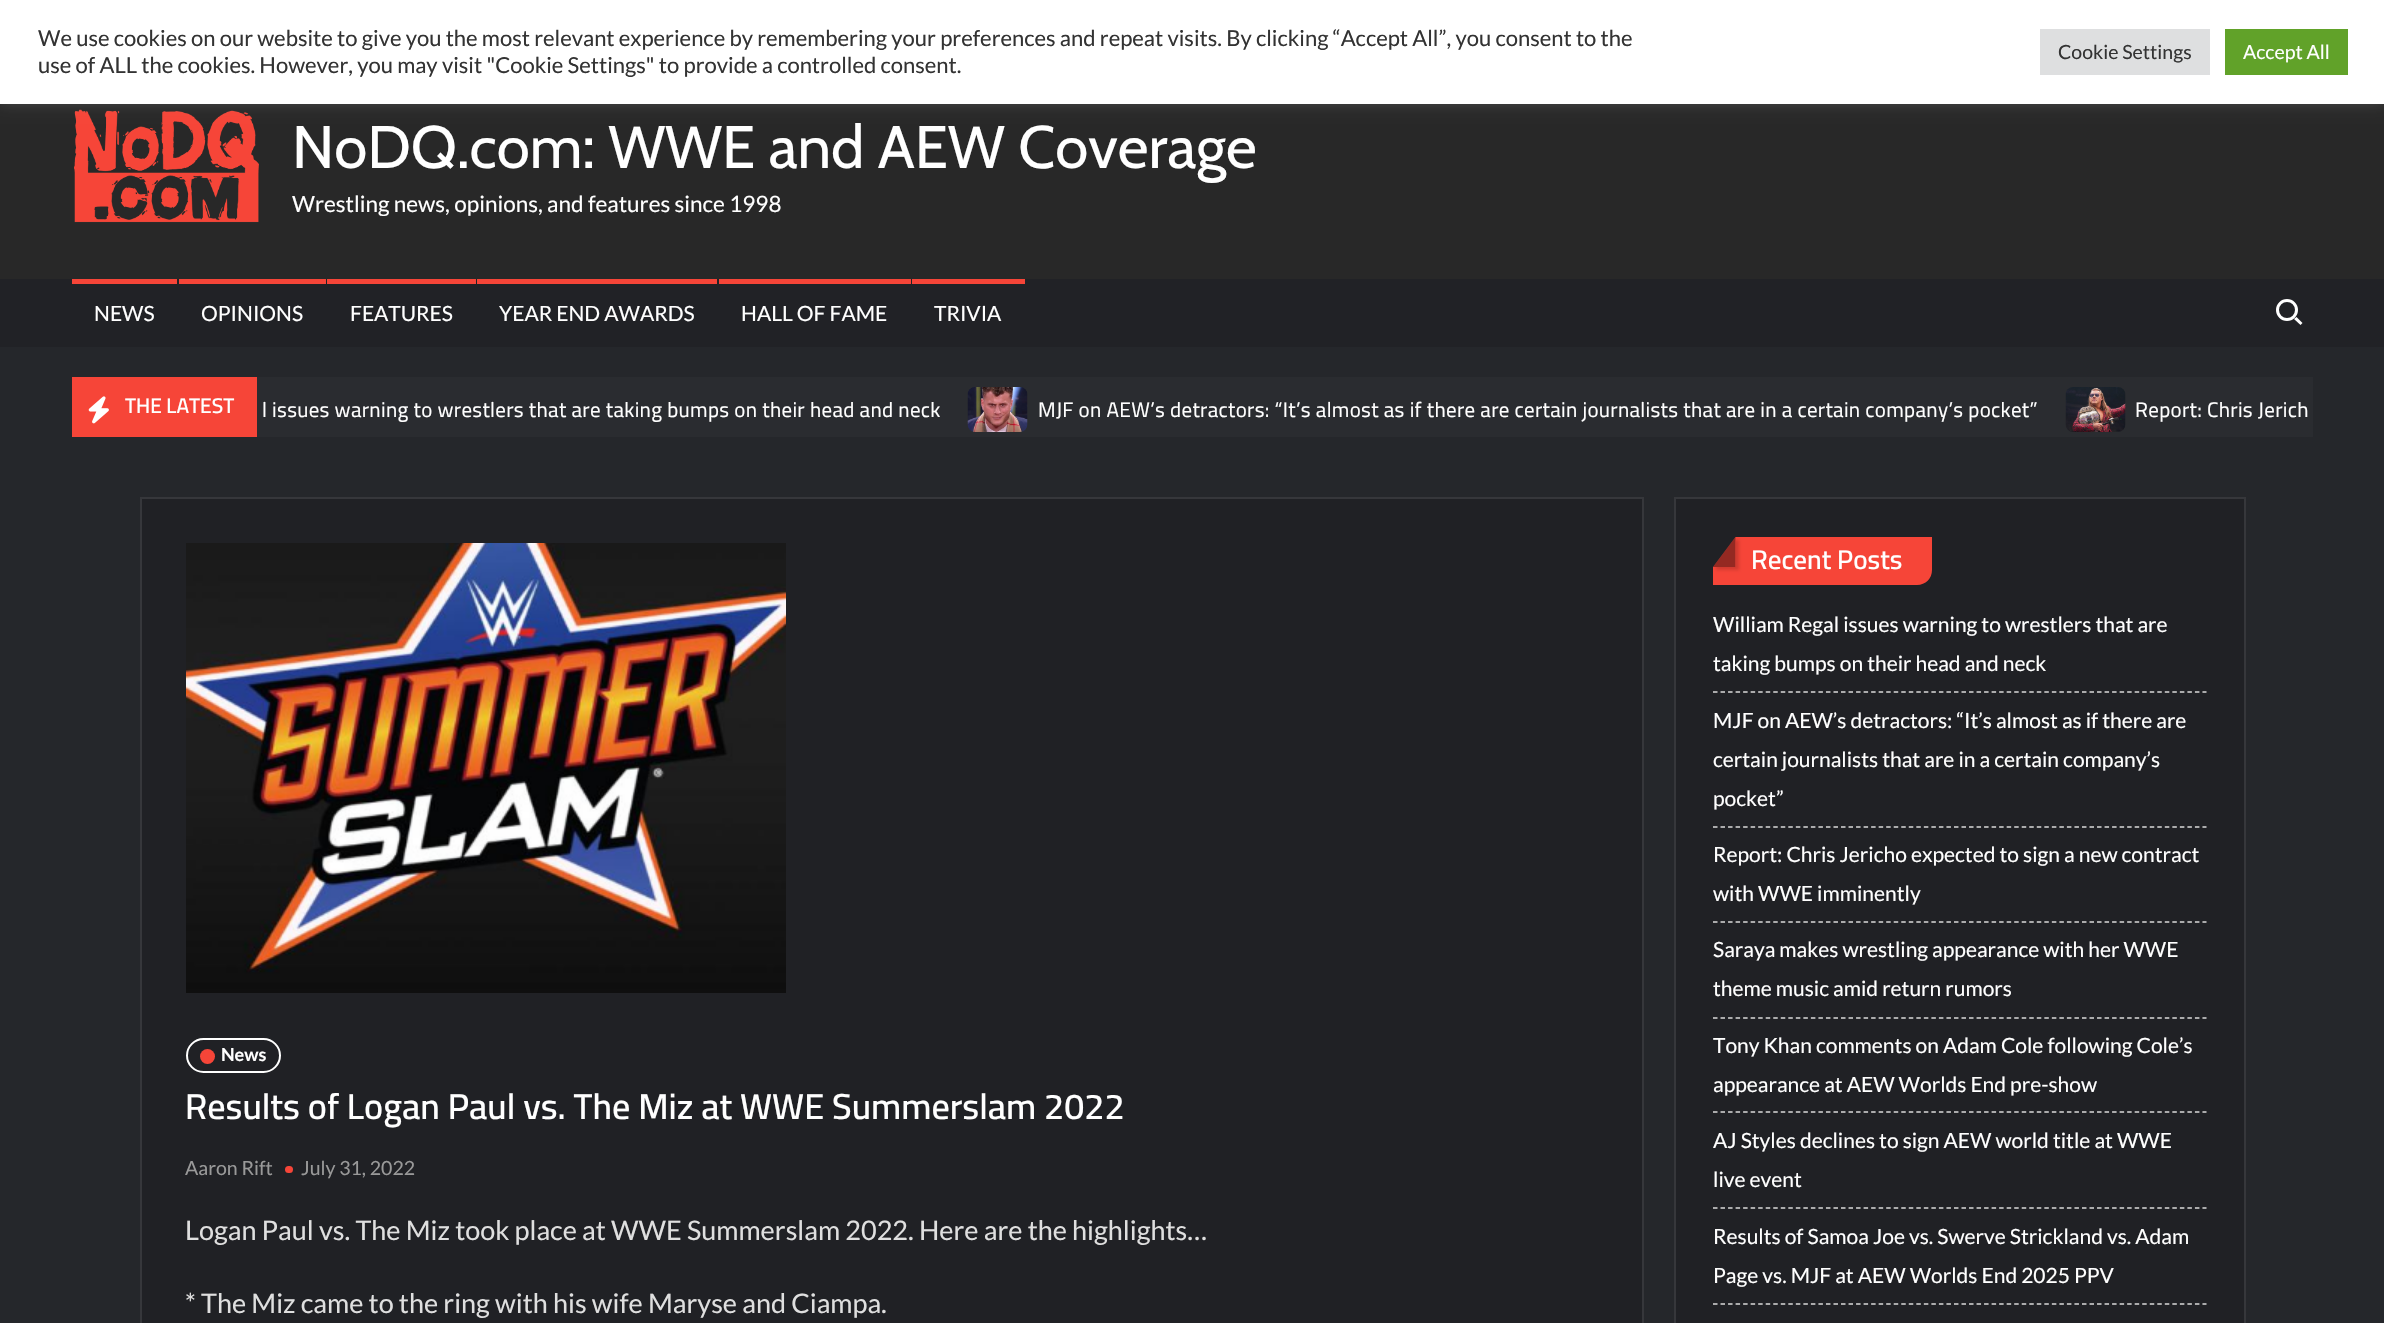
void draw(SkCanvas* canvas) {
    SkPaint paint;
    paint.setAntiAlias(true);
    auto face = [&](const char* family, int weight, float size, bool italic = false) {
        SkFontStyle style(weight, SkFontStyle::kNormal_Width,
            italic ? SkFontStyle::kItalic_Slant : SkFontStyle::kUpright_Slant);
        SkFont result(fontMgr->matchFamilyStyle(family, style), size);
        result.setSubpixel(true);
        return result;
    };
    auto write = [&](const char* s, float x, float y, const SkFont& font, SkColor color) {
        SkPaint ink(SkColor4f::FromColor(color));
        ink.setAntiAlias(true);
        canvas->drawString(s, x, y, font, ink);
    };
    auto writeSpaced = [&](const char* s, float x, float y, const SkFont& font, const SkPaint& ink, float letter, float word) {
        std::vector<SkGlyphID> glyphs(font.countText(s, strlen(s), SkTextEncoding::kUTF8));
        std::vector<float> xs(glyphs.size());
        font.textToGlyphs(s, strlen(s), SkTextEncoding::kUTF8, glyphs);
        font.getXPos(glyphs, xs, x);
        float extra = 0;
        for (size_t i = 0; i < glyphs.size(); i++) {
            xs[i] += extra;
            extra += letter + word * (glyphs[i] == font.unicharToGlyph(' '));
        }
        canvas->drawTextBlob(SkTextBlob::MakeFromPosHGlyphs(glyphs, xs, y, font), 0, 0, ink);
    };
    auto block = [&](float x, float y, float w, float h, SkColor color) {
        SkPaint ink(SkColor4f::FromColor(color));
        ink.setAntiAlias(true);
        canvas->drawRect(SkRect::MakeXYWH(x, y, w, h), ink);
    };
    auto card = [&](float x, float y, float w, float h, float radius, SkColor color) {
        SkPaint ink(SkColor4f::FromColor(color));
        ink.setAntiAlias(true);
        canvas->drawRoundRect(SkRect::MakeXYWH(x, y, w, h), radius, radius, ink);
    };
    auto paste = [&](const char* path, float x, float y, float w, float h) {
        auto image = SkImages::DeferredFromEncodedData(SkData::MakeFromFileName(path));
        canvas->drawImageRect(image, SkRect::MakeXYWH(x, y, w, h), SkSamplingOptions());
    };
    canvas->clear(SkColorSetRGB(37, 39, 43));
    block(0, 104, 2384, 175, SkColorSetRGB(40, 40, 40));
    paste("pic1.png", 74, 109, 185, 114);
    paint.setColor(SkColorSetARGB(77, 172, 171, 171));
    paint.setMaskFilter(SkMaskFilter::MakeBlur(kNormal_SkBlurStyle, 7.5f));
    canvas->drawRect(SkRect::MakeXYWH(0, -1, 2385, 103), paint);
    paint.setMaskFilter(nullptr);
    block(0, 0, 2384, 104, SK_ColorWHITE);
    auto kFont1 = face("Lato", 400, 22);
    write("We use cookies on our website to give you the most relevant experience by remembering your preferences and repeat visits. By clicking “Accept All”, you consent to the", 38, 46, kFont1, SkColorSetRGB(51, 51, 51));
    write("use of ALL the cookies. However, you may visit \"Cookie Settings\" to provide a controlled consent.", 38, 73, kFont1, SkColorSetRGB(51, 51, 51));
    block(2040, 29, 170, 46, SkColorSetRGB(222, 223, 224));
    auto kFont2 = face("Lato", 400, 19.5f);
    write("Cookie Settings", 2058, 59, kFont2, SkColorSetRGB(51, 51, 51));
    block(2225, 29, 123, 46, SkColorSetRGB(97, 162, 41));
    write("Accept All", 2243, 59, kFont2, SK_ColorWHITE);
    auto kFont3 = face("Cabin", 400, 60);
    write("NoDQ.com: WWE and AEW Coverage", 292, 168, kFont3, SK_ColorWHITE);
    auto kFont4 = face("Lato", 400, 22.5f);
    write("Wrestling news, opinions, and features since 1998", 292, 212, kFont4, SK_ColorWHITE);
    block(0, 279, 2384, 68, SkColorSetRGB(33, 34, 38));
    block(72, 279, 105, 5, SkColorSetRGB(246, 69, 56));
    auto kFont5 = face("Lato", 400, 21);
    write("NEWS", 94, 321, kFont5, SK_ColorWHITE);
    block(179, 279, 147, 5, SkColorSetRGB(246, 69, 56));
    write("OPINIONS", 201, 321, kFont5, SK_ColorWHITE);
    block(327, 279, 149, 5, SkColorSetRGB(246, 69, 56));
    write("FEATURES", 350, 321, kFont5, SK_ColorWHITE);
    block(477, 279, 240, 5, SkColorSetRGB(246, 69, 56));
    write("YEAR END AWARDS", 499, 321, kFont5, SK_ColorWHITE);
    block(719, 279, 192, 5, SkColorSetRGB(246, 69, 56));
    write("HALL OF FAME", 741, 321, kFont5, SK_ColorWHITE);
    block(912, 279, 113, 5, SkColorSetRGB(246, 69, 56));
    write("TRIVIA", 934, 321, kFont5, SK_ColorWHITE);
    paint.setStyle(SkPaint::kStroke_Style);
    paint.setStrokeWidth(3);
    paint.setColor(SK_ColorWHITE);
    canvas->drawCircle(2287, 310, 9.5f, paint);
    paint.setStyle(SkPaint::kFill_Style);
    canvas->drawPath(SkPathBuilder().moveTo(2296.5f, 317).lineTo(2302.5f, 323).lineTo(2300.5f, 325).lineTo(2294, 319).close().detach(), paint);
    block(72, 377, 185, 60, SkColorSetRGB(246, 69, 56));
    paste("pic2.png", 88, 396, 21, 28);
    auto kFont6 = face("Cairo", 600, 21);
    write("THE LATEST", 125, 413, kFont6, SK_ColorWHITE);
    block(257, 377, 2056, 60, SkColorSetRGB(42, 44, 48));
    auto kFont7 = face("Cairo", 400, 21);
    writeSpaced("l issues warning to wrestlers that are taking bumps on their head and neck", 262, 417, kFont7, paint, 0.3f, 0);
    paste("pic3.png", 967, 387, 61, 45);
    writeSpaced("MJF on AEW’s detractors: “It’s almost as if there are certain journalists that are in a certain company’s pocket”", 1038, 417, kFont7, paint, 0.3f, 0);
    paste("pic4.png", 2065, 387, 61, 45);
    writeSpaced("Report: Chris Jerich", 2135, 417, kFont7, paint, 0.3f, 0);
    paint.setColor(SkColorSetRGB(32, 33, 37));
    canvas->drawRect(SkRect::MakeXYWH(141, 498, 1502, 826), paint);
    paint.setStyle(SkPaint::kStroke_Style);
    paint.setStrokeWidth(2);
    paint.setColor(SkColorSetRGB(54, 55, 59));
    canvas->drawRect(SkRect::MakeXYWH(141, 498, 1502, 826), paint);
    paste("pic5.png", 186, 543, 600, 450);
    paint.setColor(SK_ColorWHITE);
    canvas->drawRoundRect(SkRect::MakeXYWH(187, 1039, 93, 33), 16.5f, 16.5f, paint);
    paint.setStyle(SkPaint::kFill_Style);
    paint.setColor(SkColorSetRGB(246, 69, 56));
    canvas->drawCircle(207.5f, 1056.5f, 7.5f, paint);
    auto kFont8 = face("Lato", 700, 18);
    write("News", 221, 1061, kFont8, SK_ColorWHITE);
    auto kFont9 = face("Cairo", 600, 36);
    write("Results of Logan Paul vs. The Miz at WWE Summerslam 2022", 185, 1119, kFont9, SK_ColorWHITE);
    write("Aaron Rift", 185, 1175, kFont2, SkColorSetRGB(153, 153, 153));
    card(285, 1166, 8, 7, 3.5f, SkColorSetRGB(246, 69, 56));
    write("July 31, 2022", 301, 1175, kFont2, SkColorSetRGB(153, 153, 153));
    auto kFont10 = face("Lato", 400, 27);
    write("Logan Paul vs. The Miz took place at WWE Summerslam 2022. Here are the highlights…", 185, 1240, kFont10, SkColorSetRGB(223, 223, 223));
    write("* The Miz came to the ring with his wife Maryse and Ciampa.", 185, 1313, kFont10, SkColorSetRGB(223, 223, 223));
    paint.setColor(SkColorSetRGB(32, 33, 37));
    canvas->drawRect(SkRect::MakeXYWH(1675, 498, 570, 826), paint);
    paint.setStyle(SkPaint::kStroke_Style);
    paint.setColor(SkColorSetRGB(54, 55, 59));
    canvas->drawRect(SkRect::MakeXYWH(1675, 498, 570, 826), paint);
    paint.setStyle(SkPaint::kFill_Style);
    paint.setColor(SkColorSetRGB(246, 69, 56));
    canvas->drawPath(SkPathBuilder().moveTo(1713, 537).lineTo(1932, 537).lineTo(1932, 570).cubicTo(1932, 578.5f, 1925.5f, 585, 1917, 585).lineTo(1713, 585).close().detach(), paint);
    paint.setColor(SkColorSetRGB(32, 33, 37));
    canvas->drawPath(SkPathBuilder().moveTo(1713, 537).lineTo(1735.5f, 537).lineTo(1713, 567).close().detach(), paint);
    canvas->save();
    canvas->clipPath(SkPathBuilder(SkPathFillType::kEvenOdd).moveTo(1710, 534).lineTo(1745, 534).lineTo(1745, 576).lineTo(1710, 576).close().moveTo(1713, 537).lineTo(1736, 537).lineTo(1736, 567).lineTo(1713, 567).close().detach(), true);
    paint.setColor(SkColorSetARGB(38, 0, 0, 0));
    paint.setMaskFilter(SkMaskFilter::MakeBlur(kNormal_SkBlurStyle, 1.5f));
    canvas->drawRect(SkRect::MakeXYWH(1716, 540, 23, 30), paint);
    paint.setMaskFilter(nullptr);
    canvas->restore();
    paint.setColor(SkColorSetARGB(102, 0, 0, 0));
    canvas->drawPath(SkPathBuilder().moveTo(1735.5f, 567).lineTo(1713, 567).lineTo(1735.5f, 537).close().detach(), paint);
    auto kFont11 = face("Cairo", 600, 27);
    write("Recent Posts", 1751, 569, kFont11, SK_ColorWHITE);
    paint.setStyle(SkPaint::kStroke_Style);
    paint.setStrokeWidth(1.5f);
    paint.setColor(SkColorSetRGB(217, 217, 217));
    paint.setPathEffect(SkDashPathEffect::Make({{4.5f, 3.03f}}, 0));
    canvas->drawPath(SkPathBuilder().moveTo(1713, 692).lineTo(2206.5f, 692).detach(), paint);
    paint.setPathEffect(nullptr);
    write("William Regal issues warning to wrestlers that are", 1713, 632, kFont5, SK_ColorWHITE);
    write("taking bumps on their head and neck", 1713, 671, kFont5, SK_ColorWHITE);
    paint.setPathEffect(SkDashPathEffect::Make({{4.5f, 3.03f}}, 0));
    canvas->drawPath(SkPathBuilder().moveTo(1713, 827).lineTo(2206.5f, 827).detach(), paint);
    paint.setPathEffect(nullptr);
    write("MJF on AEW’s detractors: “It’s almost as if there are", 1713, 728, kFont5, SK_ColorWHITE);
    write("certain journalists that are in a certain company’s", 1713, 767, kFont5, SK_ColorWHITE);
    write("pocket”", 1713, 806, kFont5, SK_ColorWHITE);
    paint.setPathEffect(SkDashPathEffect::Make({{4.5f, 3.03f}}, 0));
    canvas->drawPath(SkPathBuilder().moveTo(1713, 922).lineTo(2206.5f, 922).detach(), paint);
    paint.setPathEffect(nullptr);
    write("Report: Chris Jericho expected to sign a new contract", 1713, 862, kFont5, SK_ColorWHITE);
    write("with WWE imminently", 1713, 901, kFont5, SK_ColorWHITE);
    paint.setPathEffect(SkDashPathEffect::Make({{4.5f, 3.03f}}, 0));
    canvas->drawPath(SkPathBuilder().moveTo(1713, 1018).lineTo(2206.5f, 1018).detach(), paint);
    paint.setPathEffect(nullptr);
    write("Saraya makes wrestling appearance with her WWE", 1713, 957, kFont5, SK_ColorWHITE);
    write("theme music amid return rumors", 1713, 996, kFont5, SK_ColorWHITE);
    paint.setPathEffect(SkDashPathEffect::Make({{4.5f, 3.03f}}, 0));
    canvas->drawPath(SkPathBuilder().moveTo(1713, 1112).lineTo(2206.5f, 1112).detach(), paint);
    paint.setPathEffect(nullptr);
    write("Tony Khan comments on Adam Cole following Cole’s", 1713, 1053, kFont5, SK_ColorWHITE);
    write("appearance at AEW Worlds End pre-show", 1713, 1092, kFont5, SK_ColorWHITE);
    paint.setPathEffect(SkDashPathEffect::Make({{4.5f, 3.03f}}, 0));
    canvas->drawPath(SkPathBuilder().moveTo(1713, 1208).lineTo(2206.5f, 1208).detach(), paint);
    paint.setPathEffect(nullptr);
    write("AJ Styles declines to sign AEW world title at WWE", 1713, 1148, kFont5, SK_ColorWHITE);
    write("live event", 1713, 1187, kFont5, SK_ColorWHITE);
    paint.setPathEffect(SkDashPathEffect::Make({{4.5f, 3.03f}}, 0));
    canvas->drawPath(SkPathBuilder().moveTo(1713, 1304).lineTo(2206.5f, 1304).detach(), paint);
    paint.setPathEffect(nullptr);
    write("Results of Samoa Joe vs. Swerve Strickland vs. Adam", 1713, 1244, kFont5, SK_ColorWHITE);
    write("Page vs. MJF at AEW Worlds End 2025 PPV", 1713, 1283, kFont5, SK_ColorWHITE);
}
